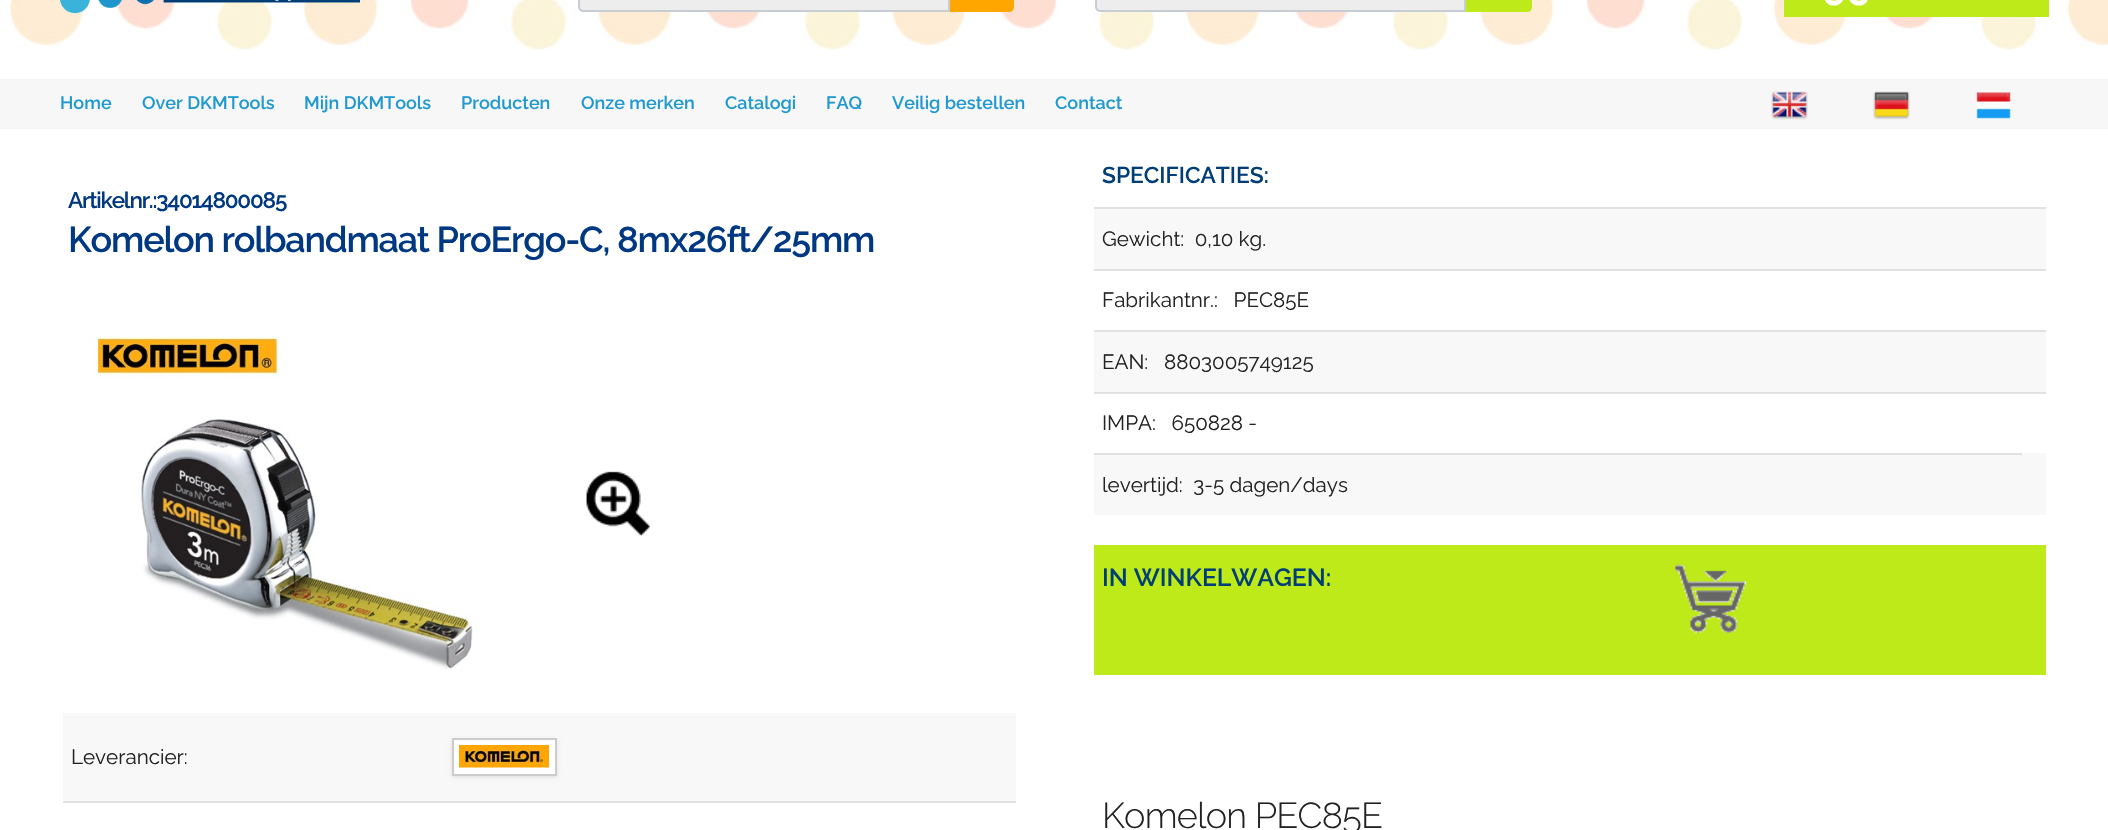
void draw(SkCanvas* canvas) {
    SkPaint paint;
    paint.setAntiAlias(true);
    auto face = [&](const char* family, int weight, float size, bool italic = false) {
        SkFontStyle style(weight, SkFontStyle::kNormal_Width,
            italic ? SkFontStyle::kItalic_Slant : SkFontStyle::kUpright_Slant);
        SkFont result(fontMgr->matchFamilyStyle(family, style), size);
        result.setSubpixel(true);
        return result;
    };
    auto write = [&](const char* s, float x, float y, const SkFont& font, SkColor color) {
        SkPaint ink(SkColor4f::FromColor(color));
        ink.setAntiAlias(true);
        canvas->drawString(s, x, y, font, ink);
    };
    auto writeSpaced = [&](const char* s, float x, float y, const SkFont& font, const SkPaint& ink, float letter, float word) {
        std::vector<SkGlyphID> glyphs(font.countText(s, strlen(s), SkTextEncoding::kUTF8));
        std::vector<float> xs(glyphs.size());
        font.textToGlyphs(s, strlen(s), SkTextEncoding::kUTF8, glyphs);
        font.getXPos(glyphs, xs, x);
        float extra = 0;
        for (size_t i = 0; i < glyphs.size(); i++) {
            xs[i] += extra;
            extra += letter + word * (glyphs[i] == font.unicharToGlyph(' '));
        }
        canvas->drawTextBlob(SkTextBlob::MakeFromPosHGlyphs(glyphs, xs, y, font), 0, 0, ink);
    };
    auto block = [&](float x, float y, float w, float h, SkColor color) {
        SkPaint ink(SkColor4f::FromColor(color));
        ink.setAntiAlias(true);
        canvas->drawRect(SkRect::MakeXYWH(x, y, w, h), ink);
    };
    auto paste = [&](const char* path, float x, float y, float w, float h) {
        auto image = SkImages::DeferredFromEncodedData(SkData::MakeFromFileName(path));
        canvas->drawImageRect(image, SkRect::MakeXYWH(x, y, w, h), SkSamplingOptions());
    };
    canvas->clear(SK_ColorWHITE);
    paste("pic1.png", 9, 0, 2099, 50);
    paste("pic2.png", 60, 0, 300, 13);
    paint.setColor(SkColorSetRGB(237, 237, 237));
    canvas->drawPath(SkPathBuilder().moveTo(583, -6).lineTo(949, -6).lineTo(949, 11).lineTo(583, 11).cubicTo(581, 11, 579, 9, 579, 7).lineTo(579, -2).cubicTo(579, -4, 581, -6, 583, -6).close().detach(), paint);
    paint.setStyle(SkPaint::kStroke_Style);
    paint.setStrokeWidth(2);
    paint.setColor(SkColorSetRGB(199, 205, 210));
    canvas->drawPath(SkPathBuilder().moveTo(583, -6).lineTo(949, -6).lineTo(949, 11).lineTo(583, 11).cubicTo(581, 11, 579, 9, 579, 7).lineTo(579, -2).cubicTo(579, -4, 581, -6, 583, -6).close().detach(), paint);
    paint.setStyle(SkPaint::kFill_Style);
    paint.setColor(SkColorSetRGB(255, 166, 0));
    canvas->drawPath(SkPathBuilder().moveTo(950, -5).lineTo(1009, -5).cubicTo(1012, -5, 1014, -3, 1014, 0).lineTo(1014, 7).cubicTo(1014, 10, 1012, 12, 1009, 12).lineTo(950, 12).close().detach(), paint);
    paint.setColor(SkColorSetRGB(237, 237, 237));
    canvas->drawPath(SkPathBuilder().moveTo(1100, -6).lineTo(1465, -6).lineTo(1465, 11).lineTo(1100, 11).cubicTo(1098, 11, 1096, 9, 1096, 7).lineTo(1096, -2).cubicTo(1096, -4, 1098, -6, 1100, -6).close().detach(), paint);
    paint.setStyle(SkPaint::kStroke_Style);
    paint.setColor(SkColorSetRGB(199, 205, 210));
    canvas->drawPath(SkPathBuilder().moveTo(1100, -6).lineTo(1465, -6).lineTo(1465, 11).lineTo(1100, 11).cubicTo(1098, 11, 1096, 9, 1096, 7).lineTo(1096, -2).cubicTo(1096, -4, 1098, -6, 1100, -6).close().detach(), paint);
    paint.setStyle(SkPaint::kFill_Style);
    paint.setColor(SkColorSetRGB(189, 234, 24));
    canvas->drawPath(SkPathBuilder().moveTo(1466, -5).lineTo(1527, -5).cubicTo(1530, -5, 1532, -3, 1532, 0).lineTo(1532, 7).cubicTo(1532, 10, 1530, 12, 1527, 12).lineTo(1466, 12).close().detach(), paint);
    block(1784, 0, 265, 17, SkColorSetRGB(189, 234, 24));
    paste("pic3.png", 1824, 0, 44, 6);
    block(0, 79, 2108, 50, SkColorSetRGB(247, 247, 247));
    auto kFont1 = face("Raleway", 600, 18);
    write("Home", 60, 109, kFont1, SkColorSetRGB(32, 153, 209));
    write("Over DKMTools", 142, 109, kFont1, SkColorSetRGB(32, 153, 209));
    write("Mijn DKMTools", 304, 109, kFont1, SkColorSetRGB(32, 153, 209));
    write("Producten", 461, 109, kFont1, SkColorSetRGB(32, 153, 209));
    write("Onze merken", 581, 109, kFont1, SkColorSetRGB(32, 153, 209));
    write("Catalogi", 725, 109, kFont1, SkColorSetRGB(32, 153, 209));
    write("FAQ", 826, 109, kFont1, SkColorSetRGB(32, 153, 209));
    write("Veilig bestellen", 892, 109, kFont1, SkColorSetRGB(32, 153, 209));
    write("Contact", 1055, 109, kFont1, SkColorSetRGB(32, 153, 209));
    paste("pic4.png", 1771, 91, 37, 29);
    paste("pic5.png", 1873, 91, 37, 29);
    paste("pic6.png", 1976, 92, 35, 27);
    auto kFont2 = face("Raleway", 600, 22.5f);
    paint.setColor(SkColorSetRGB(0, 56, 130));
    writeSpaced("Artikelnr.:34014800085", 68, 208, kFont2, paint, -1.2f, 0);
    auto kFont3 = face("Raleway", 600, 36);
    writeSpaced("Komelon rolbandmaat ProErgo-C, 8mx26ft/25mm", 68, 252, kFont3, paint, -1.2f, 0);
    paste("pic7.png", 90, 337, 386, 333);
    paste("pic8.png", 586, 471, 64, 65);
    block(63, 713, 953, 88, SkColorSetRGB(248, 248, 248));
    block(63, 801, 953, 2, SkColorSetRGB(225, 225, 225));
    paint.setColor(SkColorSetARGB(26, 0, 0, 0));
    paint.setMaskFilter(SkMaskFilter::MakeBlur(kNormal_SkBlurStyle, 2));
    canvas->drawRect(SkRect::MakeXYWH(452, 740, 105, 37), paint);
    paint.setMaskFilter(nullptr);
    paint.setColor(SK_ColorWHITE);
    canvas->drawRect(SkRect::MakeXYWH(453, 739, 103, 36), paint);
    paint.setStyle(SkPaint::kStroke_Style);
    paint.setColor(SkColorSetRGB(204, 204, 204));
    canvas->drawRect(SkRect::MakeXYWH(453, 739, 103, 36), paint);
    paste("pic9.png", 459, 745, 90, 23);
    auto kFont4 = face("Raleway", 400, 20.6f);
    write("Leverancier:", 71, 764, kFont4, SkColorSetRGB(34, 34, 34));
    block(1094, 207, 952, 2, SkColorSetRGB(225, 225, 225));
    auto kFont5 = face("Raleway", 600, 22.75f);
    write("SPECIFICATIES:", 1102, 183, kFont5, SkColorSetRGB(0, 62, 119));
    block(1094, 209, 952, 60, SkColorSetRGB(248, 248, 248));
    write("Gewicht:  0,10 kg.", 1102, 246, kFont4, SkColorSetRGB(34, 34, 34));
    block(1094, 269, 952, 2, SkColorSetRGB(225, 225, 225));
    write("Fabrikantnr.:   PEC85E", 1102, 307, kFont4, SkColorSetRGB(34, 34, 34));
    block(1094, 330, 952, 2, SkColorSetRGB(225, 225, 225));
    block(1094, 332, 952, 60, SkColorSetRGB(248, 248, 248));
    write("EAN:   8803005749125", 1102, 369, kFont4, SkColorSetRGB(34, 34, 34));
    block(1094, 392, 952, 2, SkColorSetRGB(225, 225, 225));
    block(1094, 453, 952, 62, SkColorSetRGB(248, 248, 248));
    block(1094, 453, 928, 2, SkColorSetRGB(225, 225, 225));
    write("IMPA:   650828 -", 1102, 430, kFont4, SkColorSetRGB(34, 34, 34));
    write("levertijd:  3-5 dagen/days", 1102, 492, kFont4, SkColorSetRGB(34, 34, 34));
    block(1094, 545, 952, 130, SkColorSetRGB(189, 234, 24));
    auto kFont6 = face("Raleway", 600, 24.75f);
    write("IN WINKELWAGEN:", 1102, 586, kFont6, SkColorSetRGB(0, 62, 119));
    paste("pic10.png", 1675, 564, 72, 69);
    auto kFont7 = face("Raleway", 300, 36);
    paint.setStyle(SkPaint::kFill_Style);
    paint.setColor(SkColorSetRGB(34, 34, 34));
    writeSpaced("Komelon PEC85E", 1102, 828, kFont7, paint, -0.75f, 0);
}
